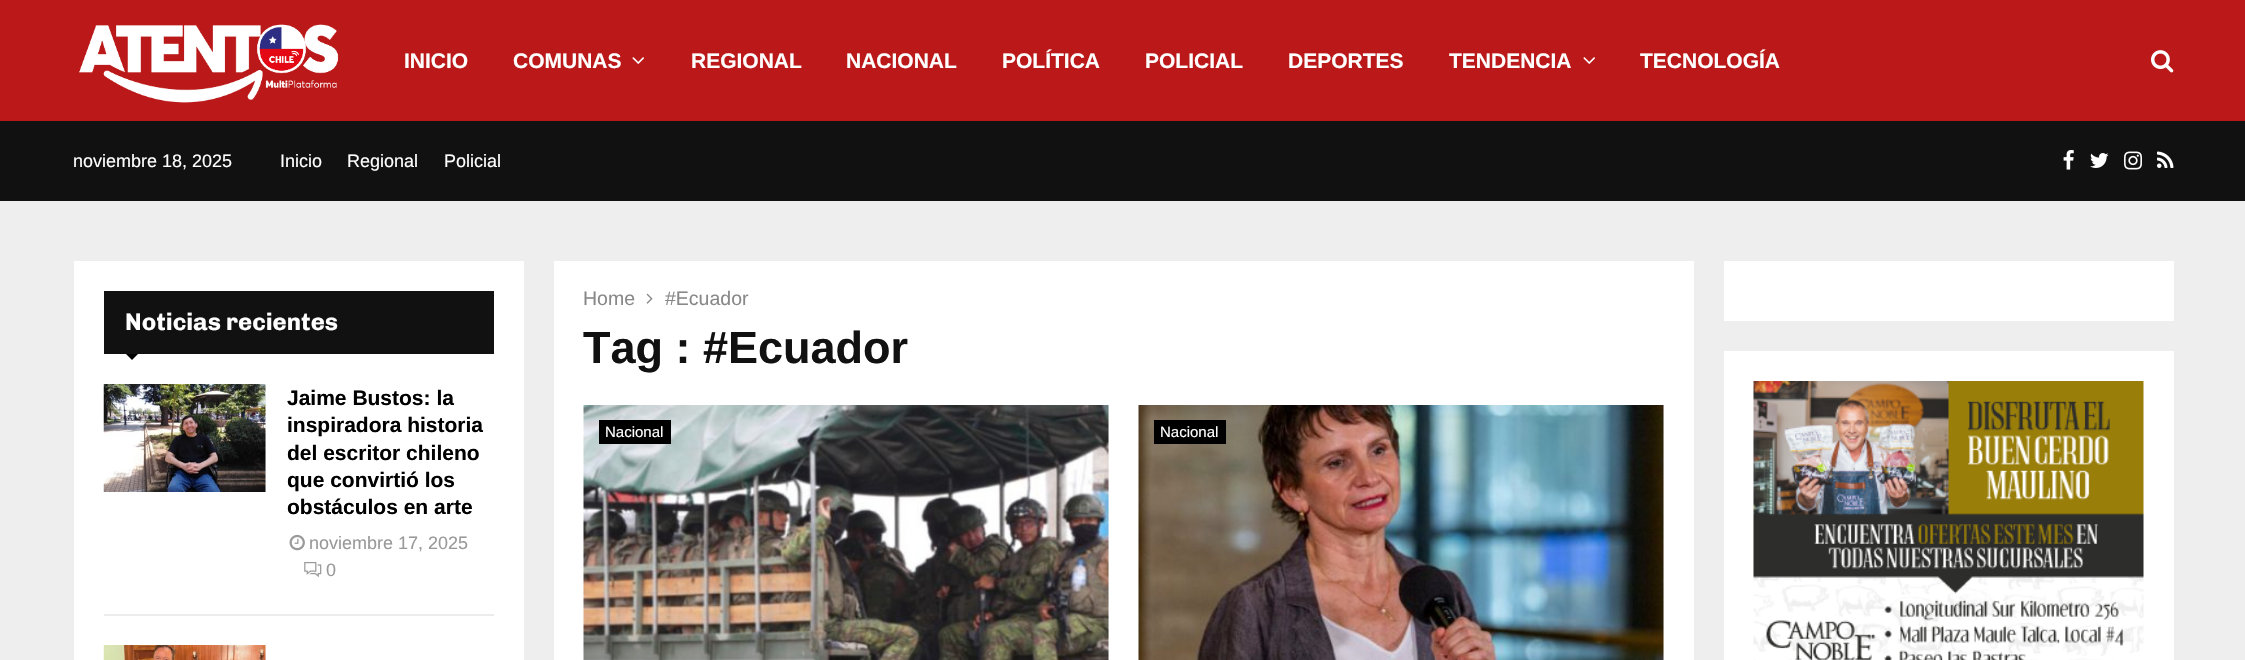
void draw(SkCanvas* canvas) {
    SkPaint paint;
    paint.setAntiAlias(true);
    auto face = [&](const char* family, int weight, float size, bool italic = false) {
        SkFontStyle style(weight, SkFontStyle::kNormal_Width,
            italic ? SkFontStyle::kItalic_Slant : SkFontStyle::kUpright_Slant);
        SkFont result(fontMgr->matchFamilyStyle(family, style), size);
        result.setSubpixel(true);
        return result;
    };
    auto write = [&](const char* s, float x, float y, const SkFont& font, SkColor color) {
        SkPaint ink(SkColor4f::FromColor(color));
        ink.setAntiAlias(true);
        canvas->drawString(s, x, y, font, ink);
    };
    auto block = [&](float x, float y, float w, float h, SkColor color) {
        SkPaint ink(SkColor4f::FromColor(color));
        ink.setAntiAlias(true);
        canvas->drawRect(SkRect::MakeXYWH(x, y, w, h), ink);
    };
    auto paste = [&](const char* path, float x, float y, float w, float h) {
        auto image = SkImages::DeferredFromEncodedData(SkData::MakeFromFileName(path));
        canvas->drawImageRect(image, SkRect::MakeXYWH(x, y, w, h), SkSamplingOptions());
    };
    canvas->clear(SkColorSetRGB(238, 238, 238));
    block(0, 0, 2245, 121, SkColorSetRGB(187, 25, 25));
    paste("pic1.png", 79, 24, 260, 79);
    auto kFont1 = face("Liberation Sans", 700, 21);
    write("INICIO", 404, 68, kFont1, SK_ColorWHITE);
    write("COMUNAS", 513, 68, kFont1, SK_ColorWHITE);
    paste("pic2.png", 632, 57, 12, 7);
    write("REGIONAL", 691, 68, kFont1, SK_ColorWHITE);
    write("NACIONAL", 846, 68, kFont1, SK_ColorWHITE);
    write("POLÍTICA", 1002, 68, kFont1, SK_ColorWHITE);
    write("POLICIAL", 1145, 68, kFont1, SK_ColorWHITE);
    write("DEPORTES", 1288, 68, kFont1, SK_ColorWHITE);
    write("TENDENCIA", 1449, 68, kFont1, SK_ColorWHITE);
    paste("pic2.png", 1583, 57, 12, 7);
    write("TECNOLOGÍA", 1640, 68, kFont1, SK_ColorWHITE);
    paste("pic3.png", 2151, 50, 23, 23);
    block(0, 121, 2245, 80, SkColorSetRGB(17, 17, 17));
    auto kFont2 = face("Liberation Sans", 400, 18);
    write("noviembre 18, 2025", 73, 167, kFont2, SK_ColorWHITE);
    write("Inicio", 280, 167, kFont2, SK_ColorWHITE);
    write("Regional", 347, 167, kFont2, SK_ColorWHITE);
    write("Policial", 444, 167, kFont2, SK_ColorWHITE);
    paste("pic4.png", 2063, 150, 11, 20);
    paste("pic5.png", 2090, 153, 19, 15);
    paste("pic6.png", 2124, 151, 18, 19);
    paste("pic7.png", 2157, 151, 17, 17);
    block(74, 261, 450, 399, SK_ColorWHITE);
    block(104, 291, 390, 63, SkColorSetRGB(17, 17, 17));
    auto kFont3 = face("Chivo", 700, 24);
    write("Noticias recientes", 125, 330, kFont3, SK_ColorWHITE);
    paint.setColor(SK_ColorBLACK);
    canvas->drawPath(SkPathBuilder().moveTo(126, 354).lineTo(138, 354).lineTo(132, 360).close().detach(), paint);
    block(104, 614, 390, 2, SkColorSetRGB(236, 236, 236));
    block(265, 384, 1, 108, SkColorSetRGB(245, 245, 245));
    paste("pic8.png", 103, 384, 163, 108);
    write("Jaime Bustos: la", 287, 405, kFont1, SK_ColorBLACK);
    write("inspiradora historia", 287, 432, kFont1, SK_ColorBLACK);
    write("del escritor chileno", 287, 460, kFont1, SK_ColorBLACK);
    write("que convirtió los", 287, 487, kFont1, SK_ColorBLACK);
    write("obstáculos en arte", 287, 514, kFont1, SK_ColorBLACK);
    paste("pic9.png", 289, 534, 16, 17);
    write("noviembre 17, 2025", 309, 549, kFont2, SkColorSetRGB(153, 153, 153));
    paste("pic10.png", 304, 562, 18, 16);
    write("0", 326, 576, kFont2, SkColorSetRGB(153, 153, 153));
    block(265, 645, 1, 15, SkColorSetRGB(245, 245, 245));
    paste("pic11.png", 103, 645, 163, 15);
    block(554, 261, 1140, 399, SK_ColorWHITE);
    auto kFont4 = face("Liberation Sans", 400, 19.5f);
    write("Home", 583, 305, kFont4, SkColorSetRGB(136, 136, 136));
    paste("pic12.png", 646, 293, 7, 11);
    write("#Ecuador", 665, 305, kFont4, SkColorSetRGB(136, 136, 136));
    auto kFont5 = face("Liberation Sans", 700, 45);
    write("Tag : #Ecuador", 583, 363, kFont5, SkColorSetRGB(17, 17, 17));
    block(1108, 405, 1, 255, SkColorSetRGB(245, 245, 245));
    paste("pic13.png", 583, 405, 526, 255);
    block(599, 420, 72, 24, SK_ColorBLACK);
    auto kFont6 = face("Liberation Sans", 400, 15);
    write("Nacional", 605, 437, kFont6, SK_ColorWHITE);
    block(1663, 405, 1, 255, SkColorSetRGB(245, 245, 245));
    paste("pic14.png", 1138, 405, 526, 255);
    block(1154, 420, 72, 24, SK_ColorBLACK);
    write("Nacional", 1160, 437, kFont6, SK_ColorWHITE);
    block(1724, 261, 450, 60, SK_ColorWHITE);
    block(1724, 351, 450, 309, SK_ColorWHITE);
    paste("pic15.png", 1753, 381, 391, 279);
}
